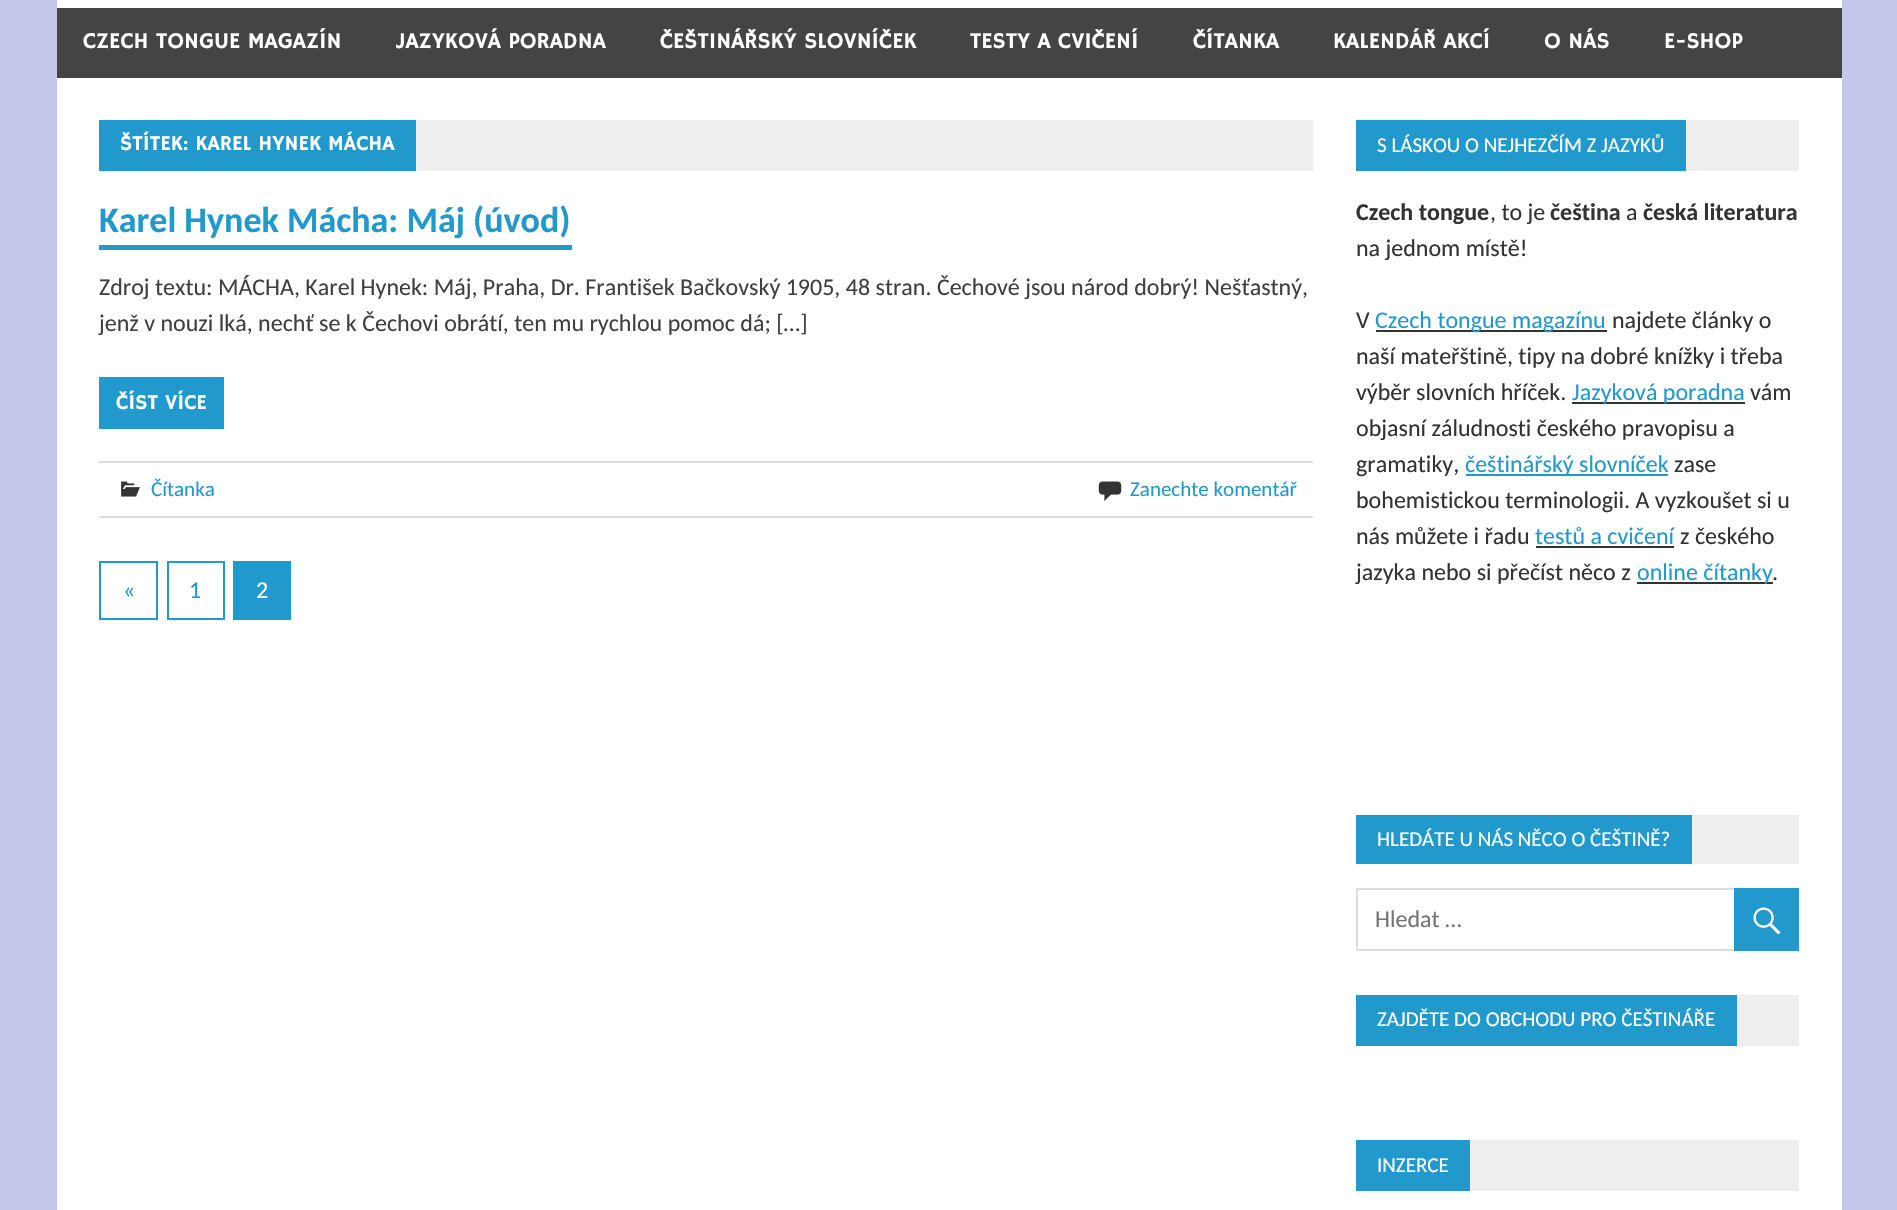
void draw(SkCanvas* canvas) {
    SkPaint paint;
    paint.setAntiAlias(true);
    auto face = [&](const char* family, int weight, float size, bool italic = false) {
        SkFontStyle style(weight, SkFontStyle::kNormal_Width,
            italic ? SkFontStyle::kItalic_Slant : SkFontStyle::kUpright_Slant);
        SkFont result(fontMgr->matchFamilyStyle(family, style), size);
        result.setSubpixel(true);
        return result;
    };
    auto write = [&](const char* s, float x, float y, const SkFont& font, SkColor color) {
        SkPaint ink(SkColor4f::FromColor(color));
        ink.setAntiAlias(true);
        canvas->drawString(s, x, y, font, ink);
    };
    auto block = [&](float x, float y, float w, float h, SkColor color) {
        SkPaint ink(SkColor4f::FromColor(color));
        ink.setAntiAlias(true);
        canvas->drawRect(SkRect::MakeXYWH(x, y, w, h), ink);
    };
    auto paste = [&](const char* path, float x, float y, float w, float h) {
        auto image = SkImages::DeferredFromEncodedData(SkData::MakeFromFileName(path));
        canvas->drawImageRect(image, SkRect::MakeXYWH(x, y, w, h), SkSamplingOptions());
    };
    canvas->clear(SkColorSetRGB(196, 200, 237));
    block(57, 0, 1785, 1210, SK_ColorWHITE);
    block(57, 8, 1785, 70, SkColorSetRGB(68, 68, 68));
    auto kFont1 = face("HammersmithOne", 400, 22.5f);
    write("CZECH TONGUE MAGAZÍN", 83, 48, kFont1, SK_ColorWHITE);
    write("JAZYKOVÁ PORADNA", 396, 48, kFont1, SK_ColorWHITE);
    write("ČEŠTINÁŘSKÝ SLOVNÍČEK", 660, 48, kFont1, SK_ColorWHITE);
    write("TESTY A CVIČENÍ", 970, 48, kFont1, SK_ColorWHITE);
    write("ČÍTANKA", 1193, 48, kFont1, SK_ColorWHITE);
    write("KALENDÁŘ AKCÍ", 1333, 48, kFont1, SK_ColorWHITE);
    write("O NÁS", 1544, 48, kFont1, SK_ColorWHITE);
    write("E-SHOP", 1664, 48, kFont1, SK_ColorWHITE);
    block(416, 120, 897, 51, SkColorSetRGB(238, 238, 238));
    block(99, 120, 317, 51, SkColorSetRGB(34, 153, 204));
    auto kFont2 = face("HammersmithOne", 400, 21);
    write("ŠTÍTEK: KAREL HYNEK MÁCHA", 120, 150, kFont2, SK_ColorWHITE);
    auto kFont3 = face("Carlito", 700, 36);
    write("Karel Hynek Mácha: Máj (úvod)", 99, 232, kFont3, SkColorSetRGB(34, 153, 204));
    block(99, 245, 473, 5, SkColorSetRGB(34, 153, 204));
    auto kFont4 = face("Carlito", 400, 24);
    write("Zdroj textu: MÁCHA, Karel Hynek: Máj, Praha, Dr. František Bačkovský 1905, 48 stran. Čechové jsou národ dobrý! Nešťastný,", 99, 295, kFont4, SkColorSetRGB(64, 64, 64));
    write("jenž v nouzi lká, nechť se k Čechovi obrátí, ten mu rychlou pomoc dá; […]", 99, 331, kFont4, SkColorSetRGB(64, 64, 64));
    block(99, 377, 125, 52, SkColorSetRGB(34, 153, 204));
    write("ČÍST VÍCE", 116, 409, kFont2, SK_ColorWHITE);
    block(99, 461, 1214, 2, SkColorSetRGB(221, 221, 221));
    block(99, 516, 1214, 2, SkColorSetRGB(221, 221, 221));
    paste("pic1.png", 121, 481, 19, 16);
    auto kFont5 = face("Carlito", 400, 21);
    write("Čítanka", 151, 496, kFont5, SkColorSetRGB(34, 153, 204));
    paste("pic2.png", 1098, 481, 24, 20);
    write("Zanechte komentář", 1130, 496, kFont5, SkColorSetRGB(34, 153, 204));
    paint.setStyle(SkPaint::kStroke_Style);
    paint.setStrokeWidth(2);
    paint.setColor(SkColorSetRGB(34, 153, 204));
    canvas->drawRect(SkRect::MakeXYWH(100, 562, 57, 57), paint);
    write("«", 123, 598, kFont4, SkColorSetRGB(34, 153, 204));
    canvas->drawRect(SkRect::MakeXYWH(168, 562, 56, 57), paint);
    write("1", 189, 598, kFont4, SkColorSetRGB(34, 153, 204));
    block(233, 561, 58, 59, SkColorSetRGB(34, 153, 204));
    write("2", 256, 598, kFont4, SK_ColorWHITE);
    block(1686, 120, 113, 51, SkColorSetRGB(238, 238, 238));
    block(1356, 120, 330, 51, SkColorSetRGB(34, 153, 204));
    write("S LÁSKOU O NEJHEZČÍM Z JAZYKŮ", 1377, 152, kFont5, SK_ColorWHITE);
    auto kFont6 = face("Carlito", 700, 24);
    write("Czech tongue", 1356, 220, kFont6, SkColorSetRGB(51, 51, 51));
    write(", to je", 1490, 220, kFont4, SkColorSetRGB(51, 51, 51));
    write("čeština", 1550, 220, kFont6, SkColorSetRGB(51, 51, 51));
    write("a", 1626, 220, kFont4, SkColorSetRGB(51, 51, 51));
    write("česká literatura", 1643, 220, kFont6, SkColorSetRGB(51, 51, 51));
    write("na jednom místě!", 1356, 256, kFont4, SkColorSetRGB(51, 51, 51));
    write("V", 1356, 328, kFont4, SkColorSetRGB(51, 51, 51));
    block(1376, 330, 231, 2, SkColorSetRGB(51, 51, 51));
    write("Czech tongue magazínu", 1375, 328, kFont4, SkColorSetRGB(34, 153, 204));
    write("najdete články o", 1612, 328, kFont4, SkColorSetRGB(51, 51, 51));
    write("naší mateřštině, tipy na dobré knížky i třeba", 1356, 364, kFont4, SkColorSetRGB(51, 51, 51));
    write("výběr slovních hříček.", 1356, 400, kFont4, SkColorSetRGB(51, 51, 51));
    block(1572, 402, 173, 2, SkColorSetRGB(51, 51, 51));
    write("Jazyková poradna", 1572, 400, kFont4, SkColorSetRGB(34, 153, 204));
    write("vám", 1750, 400, kFont4, SkColorSetRGB(51, 51, 51));
    write("objasní záludnosti českého pravopisu a", 1356, 436, kFont4, SkColorSetRGB(51, 51, 51));
    write("gramatiky,", 1356, 472, kFont4, SkColorSetRGB(51, 51, 51));
    block(1466, 474, 202, 2, SkColorSetRGB(34, 153, 204));
    write("češtinářský slovníček", 1465, 472, kFont4, SkColorSetRGB(34, 153, 204));
    write("zase", 1674, 472, kFont4, SkColorSetRGB(51, 51, 51));
    write("bohemistickou terminologii. A vyzkoušet si u", 1356, 508, kFont4, SkColorSetRGB(51, 51, 51));
    write("nás můžete i řadu", 1356, 544, kFont4, SkColorSetRGB(51, 51, 51));
    write("testů a cvičení", 1535, 544, kFont4, SkColorSetRGB(34, 153, 204));
    block(1536, 546, 138, 2, SkColorSetRGB(51, 51, 51));
    write("z českého", 1680, 544, kFont4, SkColorSetRGB(51, 51, 51));
    write("jazyka nebo si přečíst něco z", 1356, 580, kFont4, SkColorSetRGB(51, 51, 51));
    block(1637, 582, 136, 2, SkColorSetRGB(51, 51, 51));
    write("online čítanky", 1637, 580, kFont4, SkColorSetRGB(34, 153, 204));
    write(".", 1772, 580, kFont4, SkColorSetRGB(51, 51, 51));
    block(1692, 815, 107, 49, SkColorSetRGB(238, 238, 238));
    block(1356, 815, 336, 49, SkColorSetRGB(34, 153, 204));
    write("HLEDÁTE U NÁS NĚCO O ČEŠTINĚ?", 1377, 846, kFont5, SK_ColorWHITE);
    paint.setColor(SkColorSetRGB(221, 221, 221));
    canvas->drawRect(SkRect::MakeXYWH(1357, 889, 441, 61), paint);
    write("Hledat …", 1375, 927, kFont4, SkColorSetRGB(117, 117, 117));
    block(1734, 888, 65, 63, SkColorSetRGB(34, 153, 204));
    paste("pic3.png", 1753, 907, 28, 28);
    block(1737, 995, 62, 51, SkColorSetRGB(238, 238, 238));
    block(1356, 995, 381, 51, SkColorSetRGB(34, 153, 204));
    write("ZAJDĚTE DO OBCHODU PRO ČEŠTINÁŘE", 1377, 1026, kFont5, SK_ColorWHITE);
    block(1470, 1140, 329, 51, SkColorSetRGB(238, 238, 238));
    block(1356, 1140, 114, 51, SkColorSetRGB(34, 153, 204));
    write("INZERCE", 1377, 1172, kFont5, SK_ColorWHITE);
}
